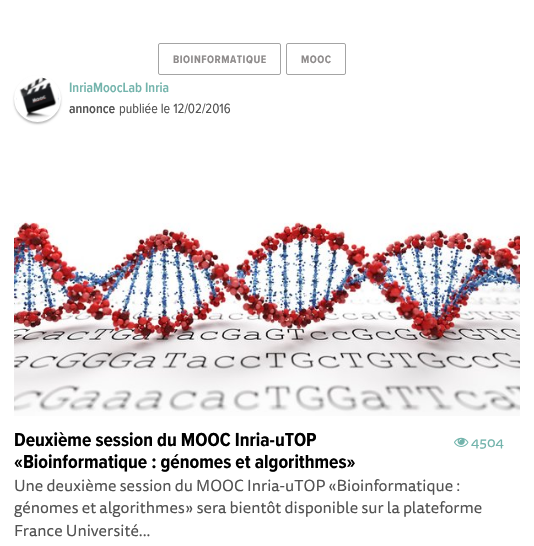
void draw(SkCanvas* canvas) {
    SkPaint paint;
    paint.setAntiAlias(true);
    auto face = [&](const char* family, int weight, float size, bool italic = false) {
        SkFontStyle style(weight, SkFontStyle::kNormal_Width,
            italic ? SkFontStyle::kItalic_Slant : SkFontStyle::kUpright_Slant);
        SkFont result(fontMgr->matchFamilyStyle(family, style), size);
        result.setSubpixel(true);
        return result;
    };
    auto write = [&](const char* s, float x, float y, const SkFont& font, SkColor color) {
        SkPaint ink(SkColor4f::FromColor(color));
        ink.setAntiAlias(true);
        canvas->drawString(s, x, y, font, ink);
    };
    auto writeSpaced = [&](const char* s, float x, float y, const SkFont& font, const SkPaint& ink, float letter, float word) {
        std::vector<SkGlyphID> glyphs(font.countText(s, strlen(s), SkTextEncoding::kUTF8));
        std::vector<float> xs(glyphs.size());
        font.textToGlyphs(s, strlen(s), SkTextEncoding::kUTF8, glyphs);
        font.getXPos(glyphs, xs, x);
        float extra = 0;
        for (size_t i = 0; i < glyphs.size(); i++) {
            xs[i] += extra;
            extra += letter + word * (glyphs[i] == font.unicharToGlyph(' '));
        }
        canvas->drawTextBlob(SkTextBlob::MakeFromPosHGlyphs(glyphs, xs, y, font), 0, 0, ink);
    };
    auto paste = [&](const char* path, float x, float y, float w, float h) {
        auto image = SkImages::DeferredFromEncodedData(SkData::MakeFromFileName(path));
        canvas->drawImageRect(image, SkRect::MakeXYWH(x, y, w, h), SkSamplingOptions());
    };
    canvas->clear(SK_ColorWHITE);
    paint.setStyle(SkPaint::kStroke_Style);
    paint.setStrokeWidth(1);
    paint.setColor(SkColorSetRGB(164, 164, 164));
    canvas->drawRoundRect(SkRect::MakeXYWH(158.5f, 43.5f, 122, 31), 1.5f, 1.5f, paint);
    auto kFont1 = face("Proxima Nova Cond", 700, 11.25f);
    paint.setStyle(SkPaint::kFill_Style);
    paint.setColor(SkColorSetRGB(142, 139, 139));
    writeSpaced("BIOINFORMATIQUE", 173, 63, kFont1, paint, 0.5f, 0);
    paint.setStyle(SkPaint::kStroke_Style);
    paint.setColor(SkColorSetRGB(164, 164, 164));
    canvas->drawRoundRect(SkRect::MakeXYWH(286.5f, 43.5f, 59, 31), 1.5f, 1.5f, paint);
    paint.setStyle(SkPaint::kFill_Style);
    paint.setColor(SkColorSetRGB(142, 139, 139));
    writeSpaced("MOOC", 301, 63, kFont1, paint, 0.5f, 0);
    paint.setColor(SkColorSetARGB(64, 0, 0, 0));
    paint.setMaskFilter(SkMaskFilter::MakeBlur(kNormal_SkBlurStyle, 1));
    canvas->drawRoundRect(SkRect::MakeXYWH(14, 77, 47, 47), 23.5f, 23.5f, paint);
    paint.setMaskFilter(nullptr);
    paint.setColor(SK_ColorWHITE);
    canvas->drawCircle(37.5f, 98.5f, 22.5f, paint);
    paint.setStyle(SkPaint::kStroke_Style);
    paint.setStrokeWidth(2);
    canvas->drawCircle(37.5f, 98.5f, 22.5f, paint);
    paste("pic1.png", 16, 77, 43, 42);
    auto kFont2 = face("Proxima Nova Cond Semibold", 600, 14);
    write("InriaMoocLab Inria", 69, 92, kFont2, SkColorSetRGB(115, 180, 172));
    write("annonce", 69, 113, kFont2, SkColorSetRGB(83, 83, 83));
    auto kFont3 = face("Proxima Nova Cond", 400, 14);
    write("publiée le 12/02/2016", 119, 113, kFont3, SkColorSetRGB(83, 83, 83));
    paste("pic2.png", 14, 221, 506, 195);
    auto kFont4 = face("Proxima Nova Cond", 700, 19.6f);
    write("Deuxième session du MOOC Inria-uTOP", 14, 446, kFont4, SK_ColorBLACK);
    write("«Bioinformatique : génomes et algorithmes»", 14, 468, kFont4, SK_ColorBLACK);
    auto kFont5 = face("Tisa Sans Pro", 400, 16);
    write("Une deuxième session du MOOC Inria-uTOP «Bioinformatique :", 14, 491, kFont5, SkColorSetRGB(83, 83, 83));
    write("génomes et algorithmes» sera bientôt disponible sur la plateforme", 14, 513, kFont5, SkColorSetRGB(83, 83, 83));
    write("France Université...", 14, 536, kFont5, SkColorSetRGB(83, 83, 83));
    paste("pic3.png", 454, 437, 15, 10);
    auto kFont6 = face("Tisa Sans Pro", 400, 14);
    write("4504", 471, 447, kFont6, SkColorSetRGB(115, 180, 172));
}
